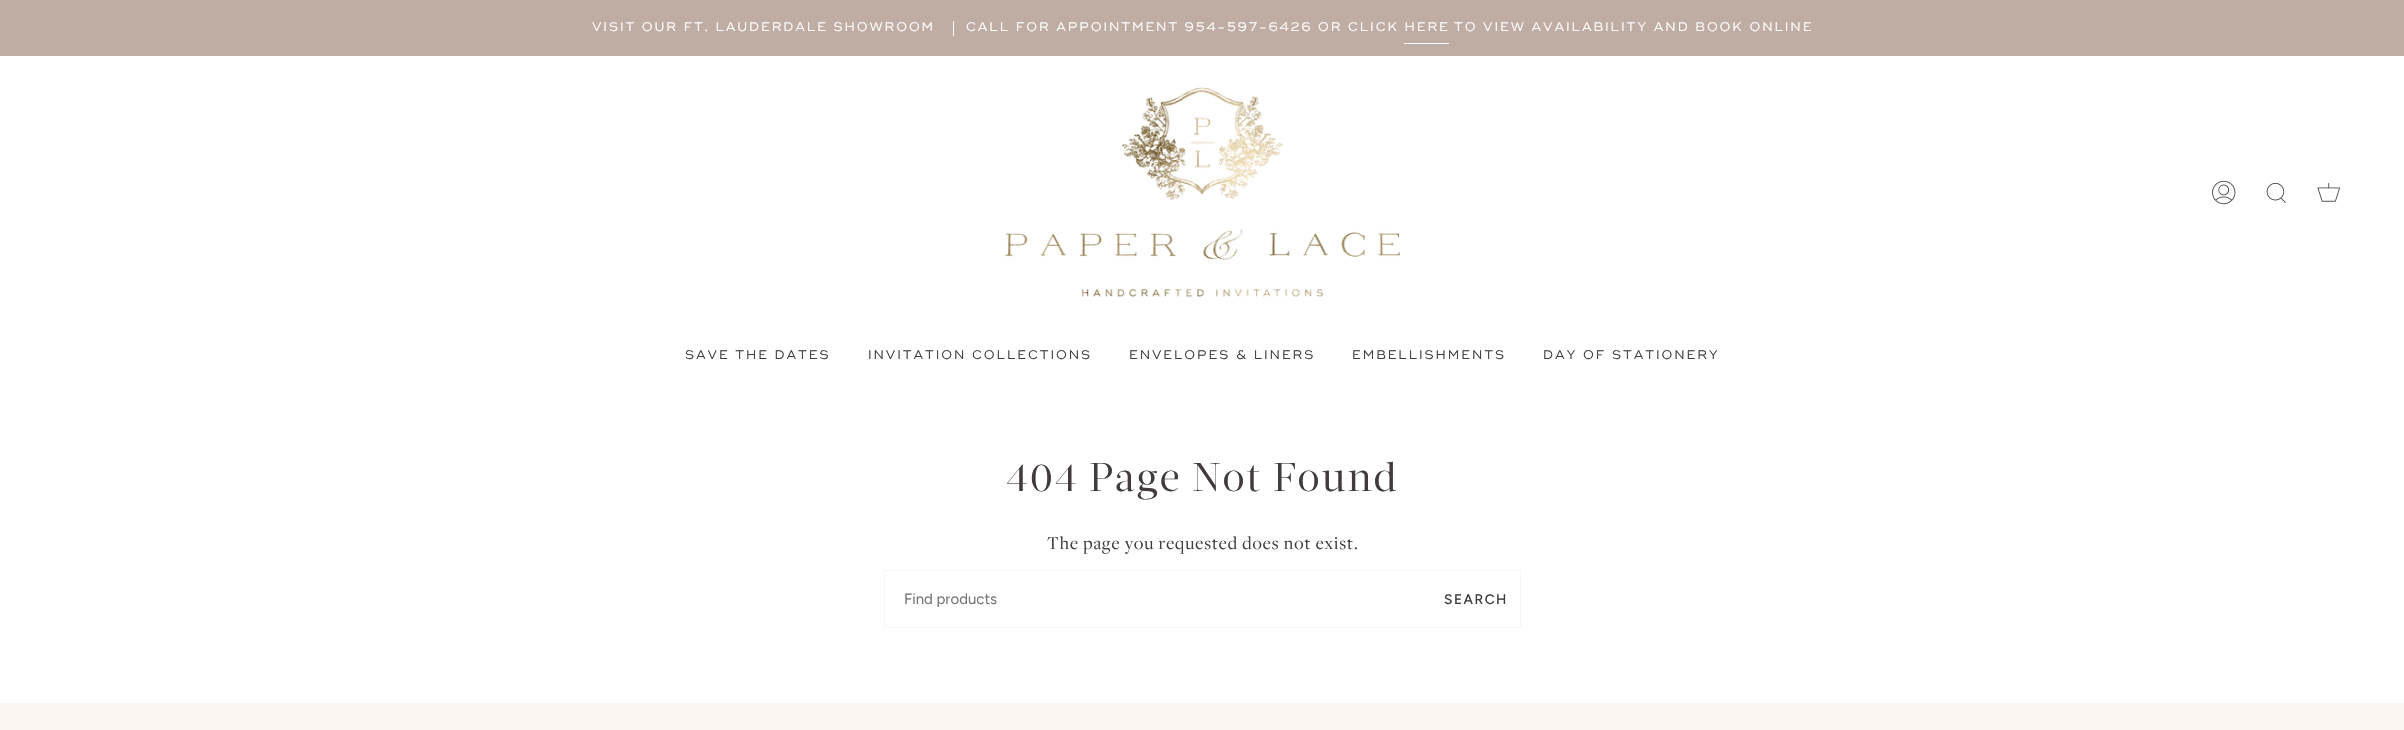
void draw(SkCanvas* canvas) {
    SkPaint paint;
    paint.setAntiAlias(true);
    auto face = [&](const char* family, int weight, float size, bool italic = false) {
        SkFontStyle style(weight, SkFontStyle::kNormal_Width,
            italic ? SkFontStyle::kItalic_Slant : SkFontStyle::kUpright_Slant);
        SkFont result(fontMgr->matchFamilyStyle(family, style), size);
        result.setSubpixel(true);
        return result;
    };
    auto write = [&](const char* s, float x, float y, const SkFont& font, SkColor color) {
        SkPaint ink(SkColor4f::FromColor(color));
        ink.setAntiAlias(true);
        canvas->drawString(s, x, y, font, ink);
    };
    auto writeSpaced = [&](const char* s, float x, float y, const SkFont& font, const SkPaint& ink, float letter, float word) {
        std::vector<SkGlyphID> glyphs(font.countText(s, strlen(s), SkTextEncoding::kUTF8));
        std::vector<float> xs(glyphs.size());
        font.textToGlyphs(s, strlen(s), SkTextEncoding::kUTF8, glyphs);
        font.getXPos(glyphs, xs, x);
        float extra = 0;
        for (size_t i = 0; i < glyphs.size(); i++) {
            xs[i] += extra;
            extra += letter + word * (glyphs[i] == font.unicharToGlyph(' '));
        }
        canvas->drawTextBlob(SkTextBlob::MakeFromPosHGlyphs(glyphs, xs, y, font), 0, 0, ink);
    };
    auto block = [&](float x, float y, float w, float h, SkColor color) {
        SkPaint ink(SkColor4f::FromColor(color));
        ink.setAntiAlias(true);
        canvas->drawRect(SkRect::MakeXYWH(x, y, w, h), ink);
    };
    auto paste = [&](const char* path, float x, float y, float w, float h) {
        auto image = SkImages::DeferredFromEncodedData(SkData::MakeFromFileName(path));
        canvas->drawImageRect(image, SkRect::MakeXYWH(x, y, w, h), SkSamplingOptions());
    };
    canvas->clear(SK_ColorWHITE);
    block(0, 0, 2404, 56, SkColorSetRGB(191, 173, 163));
    auto kFont1 = face("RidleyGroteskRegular", 400, 12.5f);
    paint.setColor(SK_ColorWHITE);
    writeSpaced("VISIT OUR FT. LAUDERDALE SHOWROOM", 592, 31, kFont1, paint, 1.9f, 0);
    block(953, 21, 1, 15, SK_ColorWHITE);
    writeSpaced("CALL FOR APPOINTMENT 954-597-6426 OR CLICK HERE", 966, 31, kFont1, paint, 1.9f, 0);
    writeSpaced("TO VIEW AVAILABILITY AND BOOK ONLINE", 1454, 31, kFont1, paint, 1.9f, 0);
    block(1404, 43, 45, 1, SK_ColorWHITE);
    paste("pic1.png", 1005, 87, 395, 210);
    paste("pic2.png", 2212, 180, 24, 25);
    paste("pic3.png", 2266, 182, 20, 21);
    paste("pic4.png", 2317, 183, 23, 19);
    paint.setColor(SkColorSetRGB(65, 59, 59));
    writeSpaced("SAVE THE DATES", 685, 359, kFont1, paint, 1.9f, 0);
    writeSpaced("INVITATION COLLECTIONS", 868, 359, kFont1, paint, 1.9f, 0);
    writeSpaced("ENVELOPES & LINERS", 1129, 359, kFont1, paint, 1.9f, 0);
    writeSpaced("EMBELLISHMENTS", 1352, 359, kFont1, paint, 1.9f, 0);
    writeSpaced("DAY OF STATIONERY", 1543, 359, kFont1, paint, 1.9f, 0);
    auto kFont2 = face("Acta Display", 400, 40);
    writeSpaced("404 Page Not Found", 1006, 491, kFont2, paint, 1.6f, 0);
    auto kFont3 = face("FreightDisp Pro", 400, 18.75f);
    writeSpaced("The page you requested does not exist.", 1047, 549, kFont3, paint, 0.95f, 0);
    paint.setStyle(SkPaint::kStroke_Style);
    paint.setStrokeWidth(1);
    paint.setColor(SkColorSetRGB(250, 245, 240));
    canvas->drawRect(SkRect::MakeXYWH(884.5f, 570.5f, 636, 57), paint);
    auto kFont4 = face("Figtree", 400, 15);
    write("Find products", 904, 604, kFont4, SkColorSetRGB(117, 117, 117));
    auto kFont5 = face("Figtree", 500, 13.75f);
    paint.setStyle(SkPaint::kFill_Style);
    paint.setColor(SkColorSetRGB(65, 59, 59));
    writeSpaced("SEARCH", 1444, 604, kFont5, paint, 1.5f, 0);
    block(0, 703, 2404, 27, SkColorSetRGB(250, 245, 240));
}
